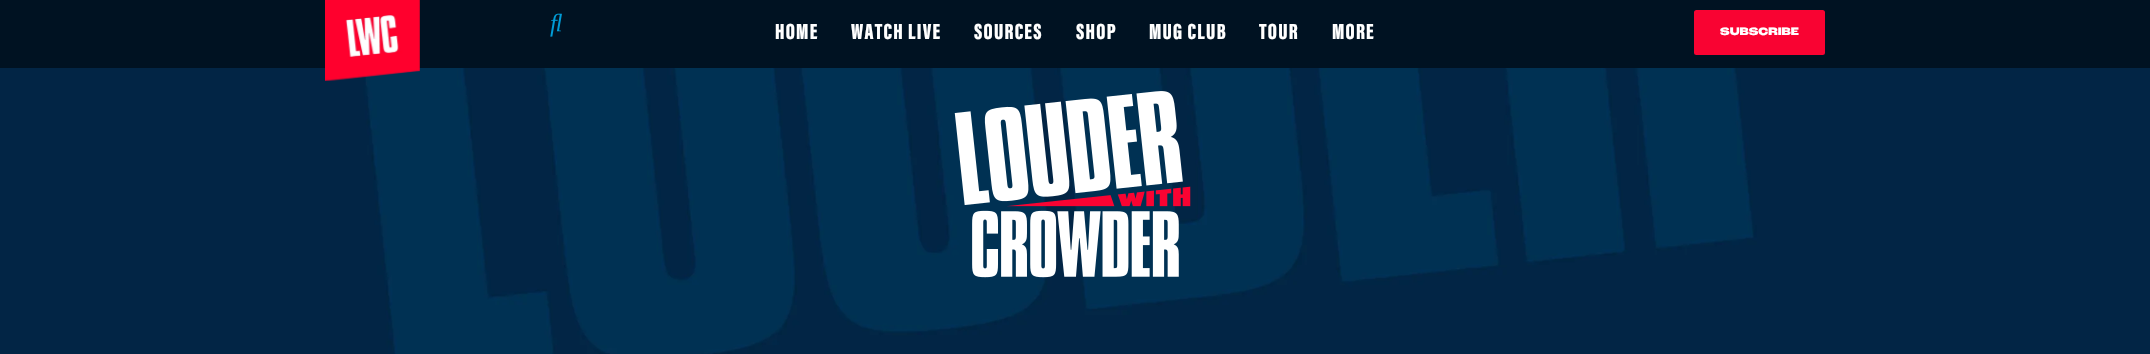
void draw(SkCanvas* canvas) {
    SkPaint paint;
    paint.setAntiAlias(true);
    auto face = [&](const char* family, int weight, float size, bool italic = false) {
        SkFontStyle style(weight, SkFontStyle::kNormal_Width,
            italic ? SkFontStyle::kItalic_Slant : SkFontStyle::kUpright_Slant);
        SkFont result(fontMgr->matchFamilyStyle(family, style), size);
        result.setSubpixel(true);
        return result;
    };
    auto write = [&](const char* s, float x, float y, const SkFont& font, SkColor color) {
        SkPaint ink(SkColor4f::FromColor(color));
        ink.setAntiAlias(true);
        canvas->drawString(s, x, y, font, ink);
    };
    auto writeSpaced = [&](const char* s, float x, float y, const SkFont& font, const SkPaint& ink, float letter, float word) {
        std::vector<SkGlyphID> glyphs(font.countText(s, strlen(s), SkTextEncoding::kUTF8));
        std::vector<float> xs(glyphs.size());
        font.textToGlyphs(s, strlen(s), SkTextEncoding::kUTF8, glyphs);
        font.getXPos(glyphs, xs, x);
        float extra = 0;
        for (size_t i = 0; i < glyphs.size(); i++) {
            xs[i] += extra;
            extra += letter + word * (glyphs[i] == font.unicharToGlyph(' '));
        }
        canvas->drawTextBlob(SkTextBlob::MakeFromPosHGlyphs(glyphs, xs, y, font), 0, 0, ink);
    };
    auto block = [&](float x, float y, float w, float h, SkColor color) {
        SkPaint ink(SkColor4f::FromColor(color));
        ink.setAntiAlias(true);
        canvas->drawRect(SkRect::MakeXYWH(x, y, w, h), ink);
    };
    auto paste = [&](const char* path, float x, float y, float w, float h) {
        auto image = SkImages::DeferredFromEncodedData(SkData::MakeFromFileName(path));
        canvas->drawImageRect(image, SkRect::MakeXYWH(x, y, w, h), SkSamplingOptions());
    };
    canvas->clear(SK_ColorWHITE);
    block(0, 0, 2150, 68, SkColorSetRGB(0, 18, 34));
    paste("pic3.png", 0, 68, 2150, 286);
    paste("pic1.png", 325, 0, 95, 81);
    paste("pic2.png", 550, 13, 12, 24);
    auto kFont1 = face("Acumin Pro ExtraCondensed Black", 900, 22.5f);
    paint.setColor(SK_ColorWHITE);
    writeSpaced("HOME", 775, 39, kFont1, paint, 1.25f, 0);
    writeSpaced("WATCH LIVE", 851, 39, kFont1, paint, 1.25f, 0);
    writeSpaced("SOURCES", 974, 39, kFont1, paint, 1.25f, 0);
    writeSpaced("SHOP", 1076, 39, kFont1, paint, 1.25f, 0);
    writeSpaced("MUG CLUB", 1149, 39, kFont1, paint, 1.25f, 0);
    writeSpaced("TOUR", 1259, 39, kFont1, paint, 1.25f, 0);
    writeSpaced("MORE", 1332, 39, kFont1, paint, 1.25f, 0);
    paint.setColor(SkColorSetRGB(249, 3, 50));
    canvas->drawRoundRect(SkRect::MakeXYWH(1695.5f, 11.5f, 128, 42), 1, 1, paint);
    paint.setStyle(SkPaint::kStroke_Style);
    paint.setStrokeWidth(3);
    canvas->drawRoundRect(SkRect::MakeXYWH(1695.5f, 11.5f, 128, 42), 1, 1, paint);
    auto kFont2 = face("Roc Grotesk", 800, 11.25f);
    write("SUBSCRIBE", 1720, 35, kFont2, SK_ColorWHITE);
    paste("pic4.png", 954, 91, 237, 187);
}
